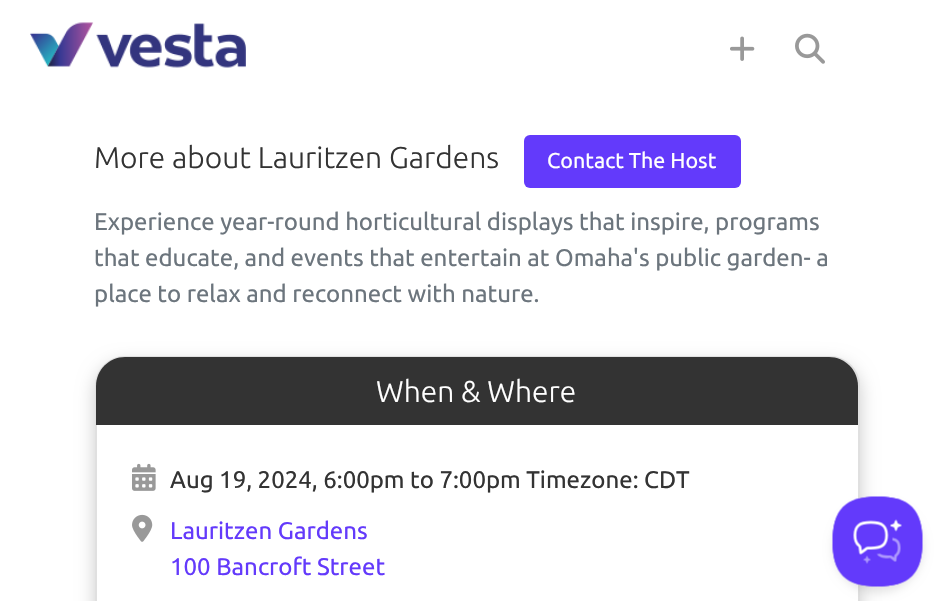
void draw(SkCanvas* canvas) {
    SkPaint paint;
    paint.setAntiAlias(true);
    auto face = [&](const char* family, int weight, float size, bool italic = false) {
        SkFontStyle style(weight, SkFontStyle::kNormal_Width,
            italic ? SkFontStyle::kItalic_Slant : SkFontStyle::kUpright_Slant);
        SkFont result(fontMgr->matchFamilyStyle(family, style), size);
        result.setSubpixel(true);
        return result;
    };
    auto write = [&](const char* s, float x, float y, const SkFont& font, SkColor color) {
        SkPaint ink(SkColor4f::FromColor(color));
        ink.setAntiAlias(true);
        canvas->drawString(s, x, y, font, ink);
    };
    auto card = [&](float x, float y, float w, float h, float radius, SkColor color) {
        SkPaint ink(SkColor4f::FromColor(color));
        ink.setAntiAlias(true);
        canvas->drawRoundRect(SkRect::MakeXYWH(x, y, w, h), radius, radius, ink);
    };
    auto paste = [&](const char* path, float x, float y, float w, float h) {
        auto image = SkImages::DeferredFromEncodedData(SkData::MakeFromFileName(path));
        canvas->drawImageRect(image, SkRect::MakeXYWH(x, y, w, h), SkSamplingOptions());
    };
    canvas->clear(SK_ColorWHITE);
    paste("pic1.png", 30, 22, 216, 46);
    paste("pic2.png", 730, 36, 25, 25);
    paste("pic3.png", 795, 33, 30, 31);
    auto kFont1 = face("Ubuntu", 300, 30);
    write("More about Lauritzen Gardens", 94, 168, kFont1, SkColorSetRGB(51, 51, 51));
    card(524, 135, 217, 53, 6, SkColorSetRGB(99, 58, 251));
    auto kFont2 = face("Ubuntu", 400, 21.5f);
    write("Contact The Host", 547, 168, kFont2, SK_ColorWHITE);
    auto kFont3 = face("Ubuntu", 400, 24);
    write("Experience year-round horticultural displays that inspire, programs", 94, 230, kFont3, SkColorSetRGB(108, 117, 125));
    write("that educate, and events that entertain at Omaha's public garden- a", 94, 266, kFont3, SkColorSetRGB(108, 117, 125));
    write("place to relax and reconnect with nature.", 94, 302, kFont3, SkColorSetRGB(108, 117, 125));
    paint.setColor(SkColorSetARGB(51, 0, 0, 0));
    paint.setMaskFilter(SkMaskFilter::MakeBlur(kNormal_SkBlurStyle, 9));
    canvas->drawRoundRect(SkRect::MakeXYWH(95, 363, 765, 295), 30, 30, paint);
    paint.setMaskFilter(nullptr);
    card(95, 356, 765, 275, 30, SK_ColorWHITE);
    paint.setStyle(SkPaint::kStroke_Style);
    paint.setStrokeWidth(2);
    paint.setColor(SkColorSetARGB(31, 0, 0, 0));
    canvas->drawRoundRect(SkRect::MakeXYWH(96, 357, 763, 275), 29, 29, paint);
    paint.setStyle(SkPaint::kFill_Style);
    paint.setColor(SkColorSetRGB(51, 51, 51));
    canvas->drawPath(SkPathBuilder().moveTo(125, 357).lineTo(829, 357).cubicTo(845, 357, 858, 370, 858, 386).lineTo(858, 425).lineTo(96, 425).lineTo(96, 386).cubicTo(96, 370, 109, 357, 125, 357).close().detach(), paint);
    write("When & Where", 376, 402, kFont1, SK_ColorWHITE);
    paste("pic4.png", 132, 463, 24, 28);
    write("Aug 19, 2024, 6:00pm to 7:00pm Timezone: CDT", 170, 488, kFont3, SkColorSetRGB(51, 51, 51));
    paste("pic5.png", 132, 514, 21, 28);
    write("Lauritzen Gardens", 170, 539, kFont3, SkColorSetRGB(99, 58, 251));
    write("100 Bancroft Street", 170, 575, kFont3, SkColorSetRGB(99, 58, 251));
    paint.setColor(SkColorSetARGB(26, 0, 0, 0));
    paint.setMaskFilter(SkMaskFilter::MakeBlur(kNormal_SkBlurStyle, 5));
    canvas->drawRoundRect(SkRect::MakeXYWH(833, 503, 90, 90), 45, 45, paint);
    paint.setMaskFilter(nullptr);
    paste("pic6.png", 832, 496, 91, 91);
}
